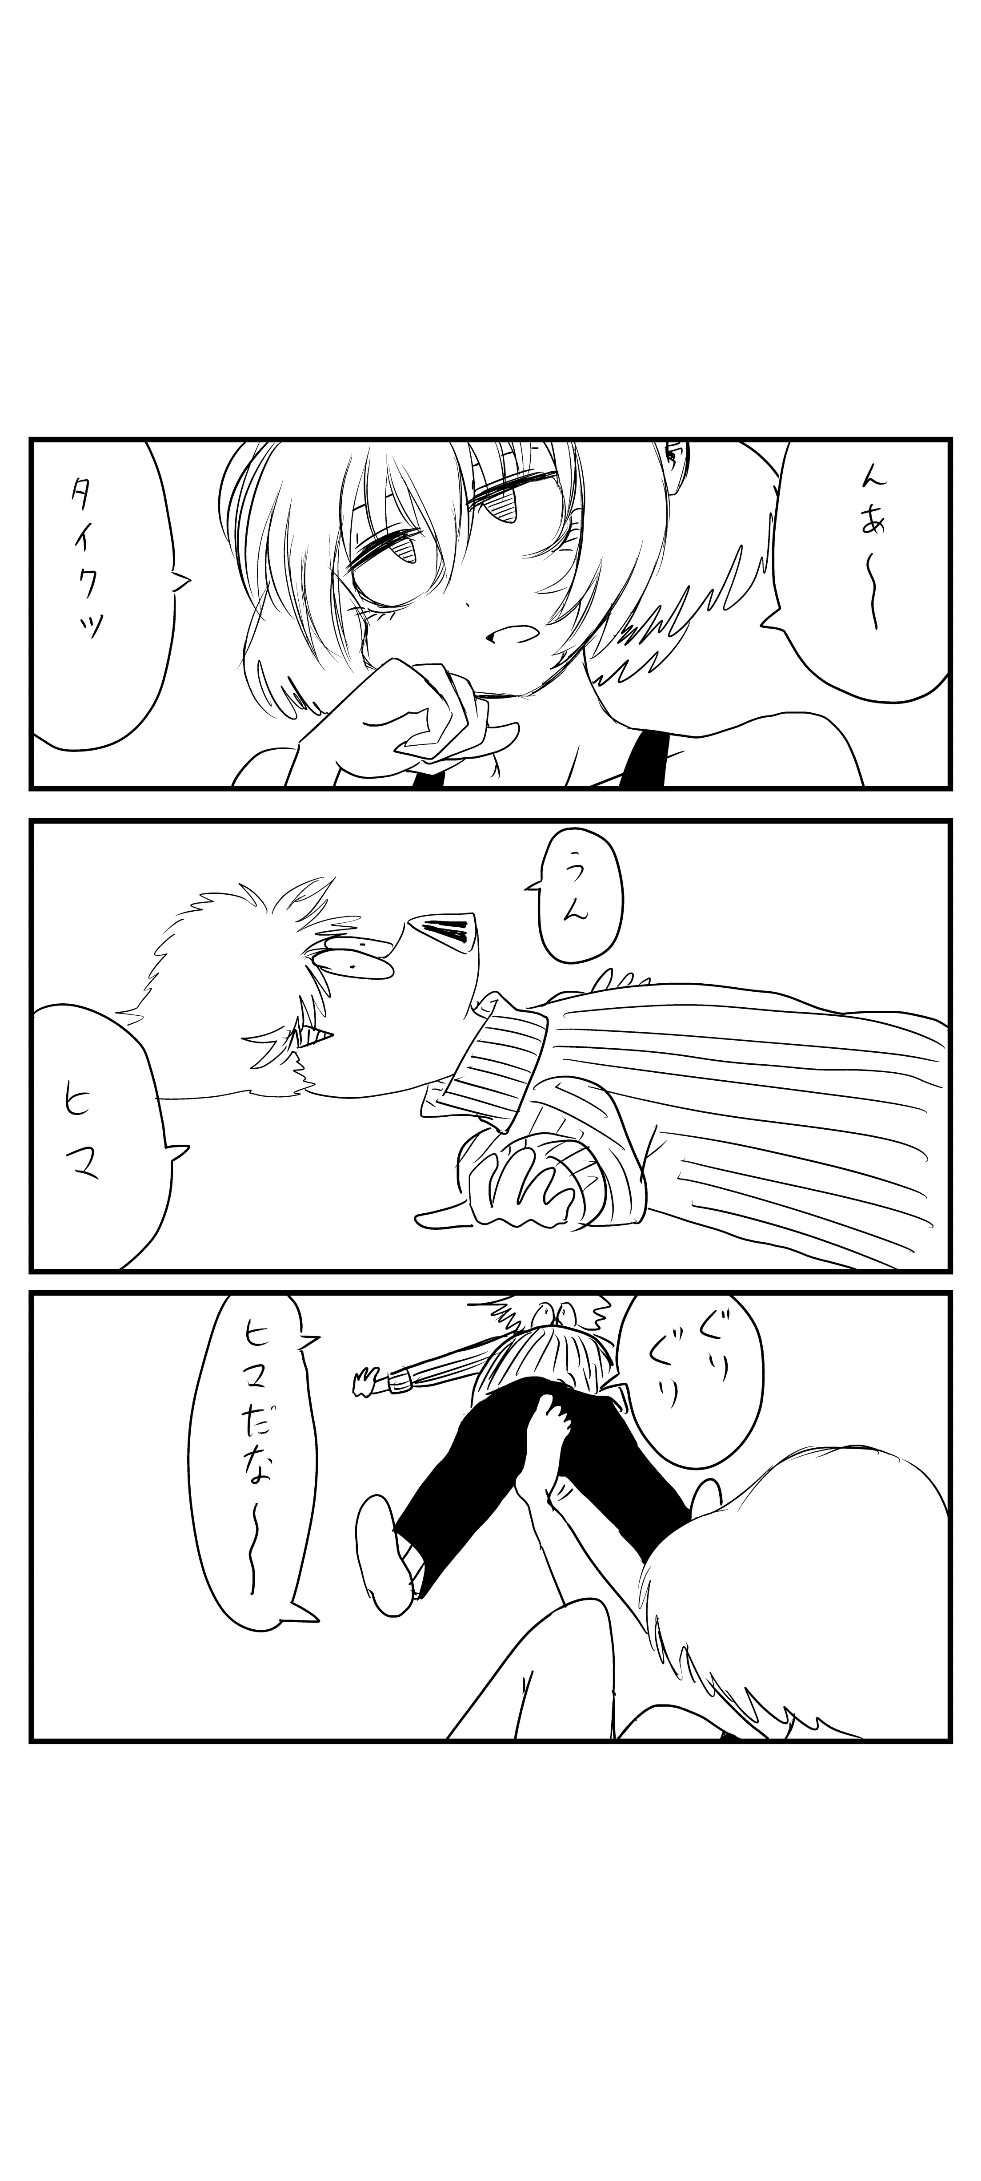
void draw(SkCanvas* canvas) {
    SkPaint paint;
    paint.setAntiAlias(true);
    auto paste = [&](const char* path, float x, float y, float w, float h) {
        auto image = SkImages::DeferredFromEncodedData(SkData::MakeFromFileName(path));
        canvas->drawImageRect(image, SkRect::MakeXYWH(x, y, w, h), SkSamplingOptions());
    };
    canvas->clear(SK_ColorWHITE);
    paste("pic1.png", 28, 436, 926, 1309);
}
